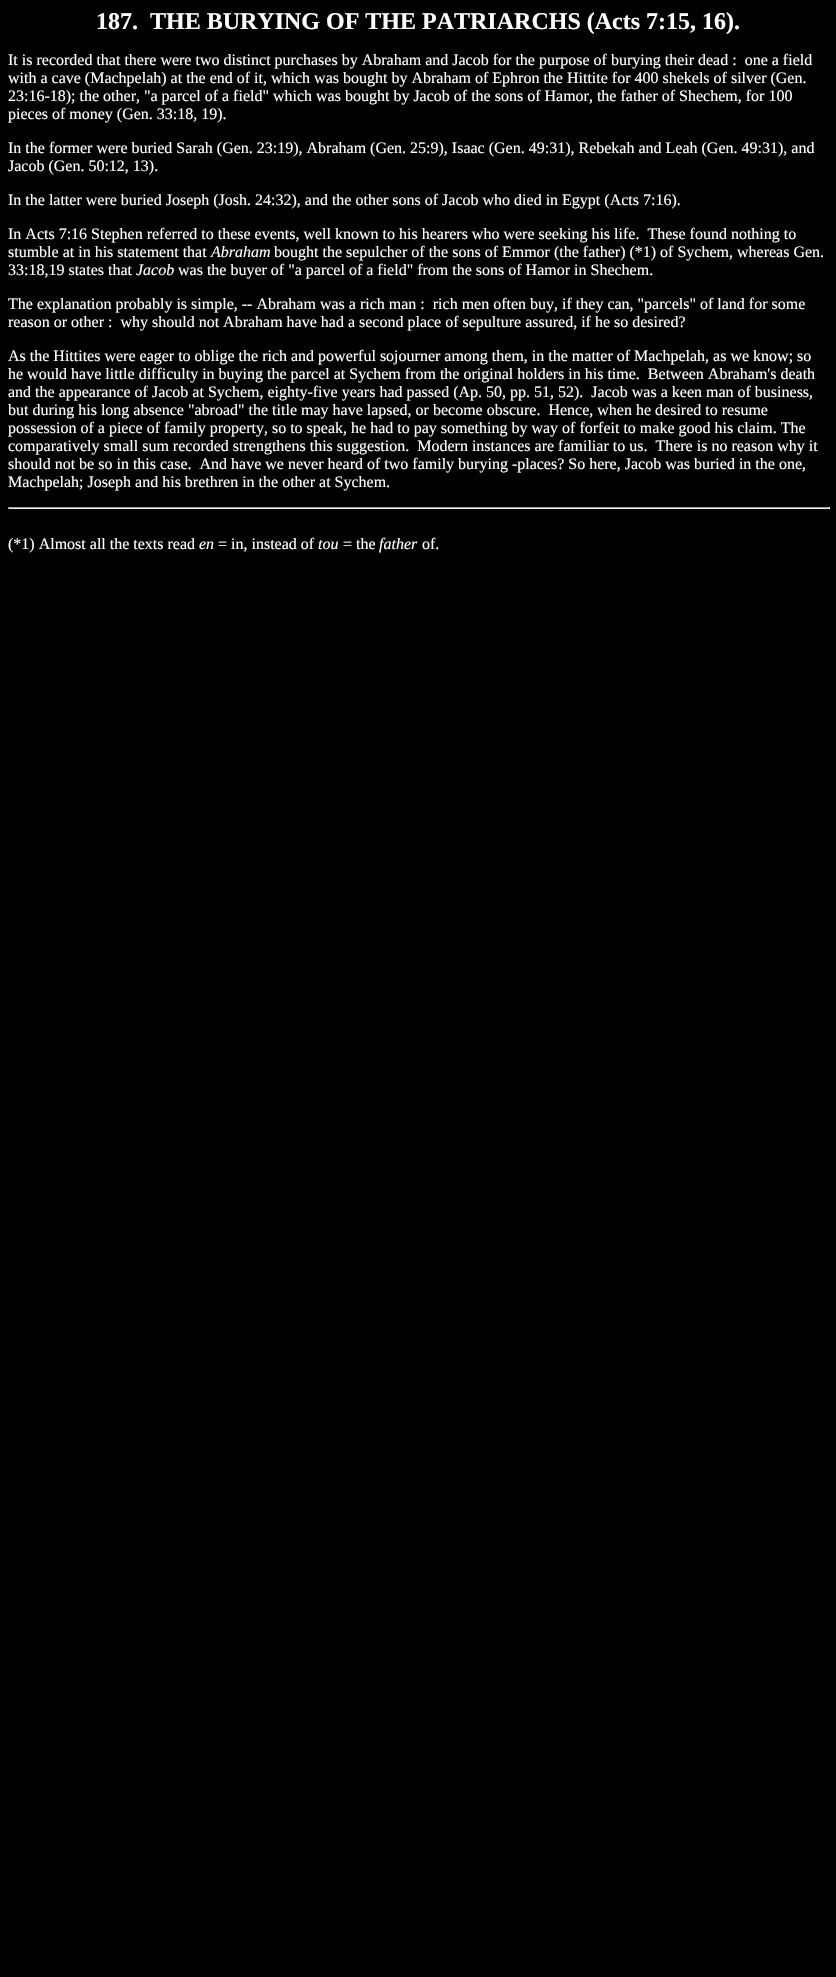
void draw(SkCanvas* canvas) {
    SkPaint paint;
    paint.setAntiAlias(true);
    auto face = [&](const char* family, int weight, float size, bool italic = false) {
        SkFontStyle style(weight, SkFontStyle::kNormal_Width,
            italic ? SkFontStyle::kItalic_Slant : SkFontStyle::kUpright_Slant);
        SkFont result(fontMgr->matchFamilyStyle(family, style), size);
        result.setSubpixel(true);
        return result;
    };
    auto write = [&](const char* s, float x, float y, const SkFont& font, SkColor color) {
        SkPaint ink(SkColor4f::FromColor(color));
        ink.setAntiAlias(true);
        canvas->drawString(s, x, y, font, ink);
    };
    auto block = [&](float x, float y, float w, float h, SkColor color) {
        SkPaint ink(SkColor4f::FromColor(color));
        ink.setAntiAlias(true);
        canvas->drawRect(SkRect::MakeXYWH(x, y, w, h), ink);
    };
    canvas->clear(SK_ColorBLACK);
    auto kFont1 = face("Liberation Serif", 700, 24);
    write("187.  THE BURYING OF THE PATRIARCHS (Acts 7:15, 16).", 96, 29, kFont1, SK_ColorWHITE);
    auto kFont2 = face("Liberation Serif", 400, 16);
    write("It is recorded that there were two distinct purchases by Abraham and Jacob for the purpose of burying their dead :  one a field", 8, 65, kFont2, SK_ColorWHITE);
    write("with a cave (Machpelah) at the end of it, which was bought by Abraham of Ephron the Hittite for 400 shekels of silver (Gen.", 8, 83, kFont2, SK_ColorWHITE);
    write("23:16-18); the other, \"a parcel of a field\" which was bought by Jacob of the sons of Hamor, the father of Shechem, for 100", 8, 101, kFont2, SK_ColorWHITE);
    write("pieces of money (Gen. 33:18, 19).", 8, 119, kFont2, SK_ColorWHITE);
    write("In the former were buried Sarah (Gen. 23:19), Abraham (Gen. 25:9), Isaac (Gen. 49:31), Rebekah and Leah (Gen. 49:31), and", 8, 153, kFont2, SK_ColorWHITE);
    write("Jacob (Gen. 50:12, 13).", 8, 171, kFont2, SK_ColorWHITE);
    write("In the latter were buried Joseph (Josh. 24:32), and the other sons of Jacob who died in Egypt (Acts 7:16).", 8, 205, kFont2, SK_ColorWHITE);
    write("In Acts 7:16 Stephen referred to these events, well known to his hearers who were seeking his life.  These found nothing to", 8, 239, kFont2, SK_ColorWHITE);
    write("stumble at in his statement that", 8, 257, kFont2, SK_ColorWHITE);
    auto kFont3 = face("Liberation Serif", 400, 16, true);
    write("Abraham", 211, 257, kFont3, SK_ColorWHITE);
    write("bought the sepulcher of the sons of Emmor (the father) (*1) of Sychem, whereas Gen.", 274, 257, kFont2, SK_ColorWHITE);
    write("33:18,19 states that", 8, 275, kFont2, SK_ColorWHITE);
    write("Jacob", 136, 275, kFont3, SK_ColorWHITE);
    write("was the buyer of \"a parcel of a field\" from the sons of Hamor in Shechem.", 178, 275, kFont2, SK_ColorWHITE);
    write("The explanation probably is simple, -- Abraham was a rich man :  rich men often buy, if they can, \"parcels\" of land for some", 8, 309, kFont2, SK_ColorWHITE);
    write("reason or other :  why should not Abraham have had a second place of sepulture assured, if he so desired?", 8, 327, kFont2, SK_ColorWHITE);
    write("As the Hittites were eager to oblige the rich and powerful sojourner among them, in the matter of Machpelah, as we know; so", 8, 361, kFont2, SK_ColorWHITE);
    write("he would have little difficulty in buying the parcel at Sychem from the original holders in his time.  Between Abraham's death", 8, 379, kFont2, SK_ColorWHITE);
    write("and the appearance of Jacob at Sychem, eighty-five years had passed (Ap. 50, pp. 51, 52).  Jacob was a keen man of business,", 8, 397, kFont2, SK_ColorWHITE);
    write("but during his long absence \"abroad\" the title may have lapsed, or become obscure.  Hence, when he desired to resume", 8, 415, kFont2, SK_ColorWHITE);
    write("possession of a piece of family property, so to speak, he had to pay something by way of forfeit to make good his claim. The", 8, 433, kFont2, SK_ColorWHITE);
    write("comparatively small sum recorded strengthens this suggestion.  Modern instances are familiar to us.  There is no reason why it", 8, 451, kFont2, SK_ColorWHITE);
    write("should not be so in this case.  And have we never heard of two family burying -places? So here, Jacob was buried in the one,", 8, 469, kFont2, SK_ColorWHITE);
    write("Machpelah; Joseph and his brethren in the other at Sychem.", 8, 487, kFont2, SK_ColorWHITE);
    block(8, 507, 822, 1, SkColorSetRGB(159, 159, 159));
    block(829, 507, 1, 2, SkColorSetRGB(238, 238, 238));
    block(8, 508, 822, 1, SkColorSetRGB(238, 238, 238));
    block(8, 507, 1, 2, SkColorSetRGB(159, 159, 159));
    write("(*1) Almost all the texts read", 8, 549, kFont2, SK_ColorWHITE);
    write("en", 199, 549, kFont3, SK_ColorWHITE);
    write("= in, instead of", 218, 549, kFont2, SK_ColorWHITE);
    write("tou", 318, 549, kFont3, SK_ColorWHITE);
    write("= the", 343, 549, kFont2, SK_ColorWHITE);
    write("father", 379, 549, kFont3, SK_ColorWHITE);
    write("of.", 422, 549, kFont2, SK_ColorWHITE);
}
